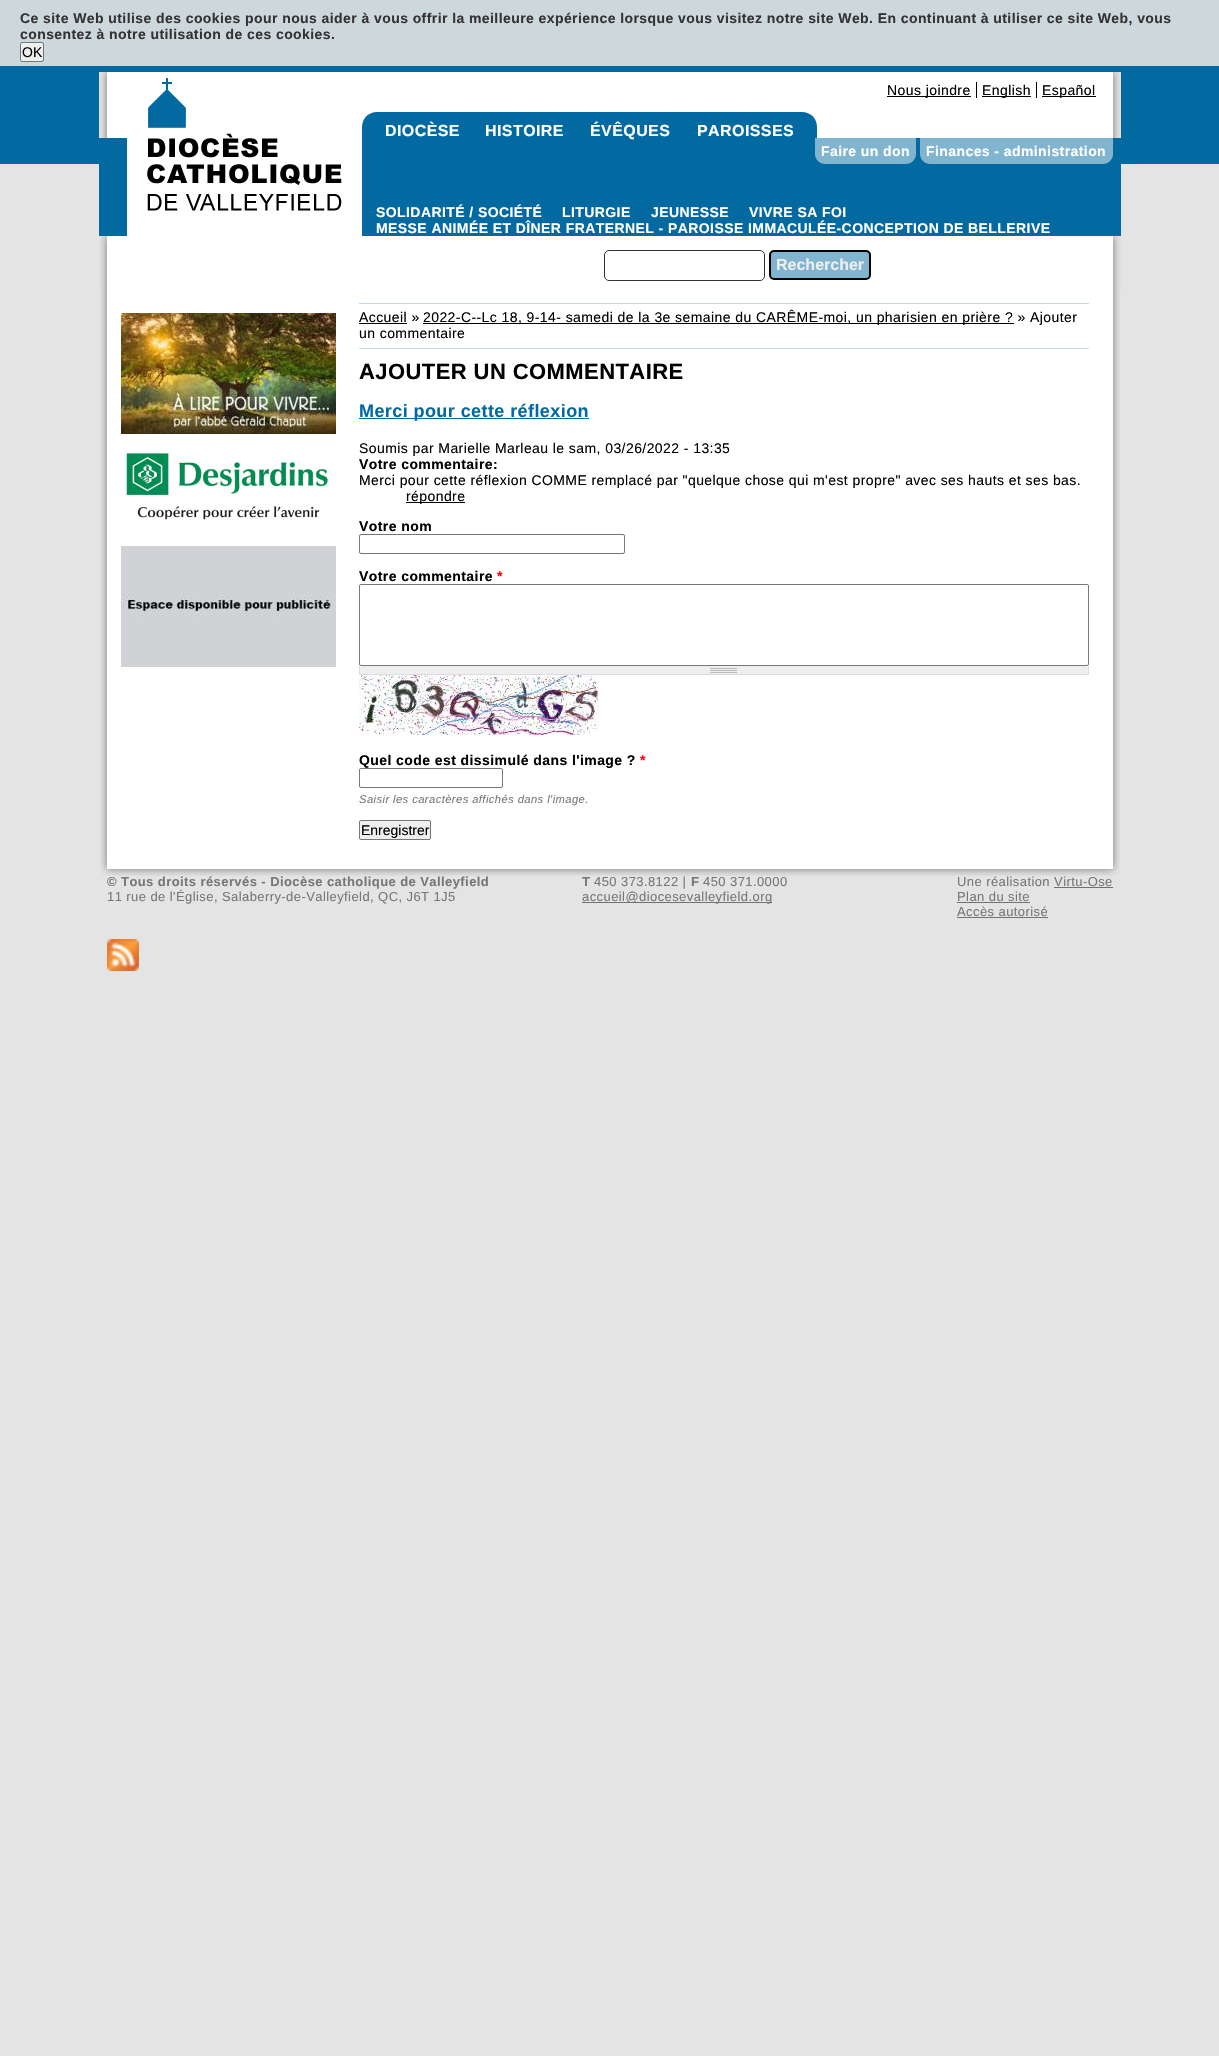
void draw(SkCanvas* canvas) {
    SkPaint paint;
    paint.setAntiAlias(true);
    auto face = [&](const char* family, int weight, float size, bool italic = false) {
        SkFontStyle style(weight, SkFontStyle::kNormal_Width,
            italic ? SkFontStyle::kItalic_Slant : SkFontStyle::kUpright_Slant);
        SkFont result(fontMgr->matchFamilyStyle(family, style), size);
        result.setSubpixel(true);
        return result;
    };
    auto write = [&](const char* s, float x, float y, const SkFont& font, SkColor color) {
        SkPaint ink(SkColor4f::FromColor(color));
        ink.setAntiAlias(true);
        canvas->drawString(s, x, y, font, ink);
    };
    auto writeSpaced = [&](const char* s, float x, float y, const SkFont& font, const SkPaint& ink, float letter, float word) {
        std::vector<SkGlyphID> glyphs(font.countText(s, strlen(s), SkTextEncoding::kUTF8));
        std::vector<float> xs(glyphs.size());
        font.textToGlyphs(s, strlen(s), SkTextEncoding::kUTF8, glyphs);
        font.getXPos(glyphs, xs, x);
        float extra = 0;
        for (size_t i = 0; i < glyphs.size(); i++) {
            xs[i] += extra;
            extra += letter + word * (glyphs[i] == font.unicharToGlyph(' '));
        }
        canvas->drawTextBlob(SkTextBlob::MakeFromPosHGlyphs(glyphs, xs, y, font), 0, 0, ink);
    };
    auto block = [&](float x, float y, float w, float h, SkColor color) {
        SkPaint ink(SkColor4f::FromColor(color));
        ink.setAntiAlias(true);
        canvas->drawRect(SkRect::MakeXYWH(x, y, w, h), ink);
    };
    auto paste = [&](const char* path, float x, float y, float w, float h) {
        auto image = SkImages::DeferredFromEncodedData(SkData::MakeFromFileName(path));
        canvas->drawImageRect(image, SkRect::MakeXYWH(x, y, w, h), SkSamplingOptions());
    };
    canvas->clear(SkColorSetRGB(228, 228, 228));
    block(0, 0, 1219, 66, SkColorSetRGB(205, 216, 221));
    block(0, 66, 1219, 98, SkColorSetRGB(2, 106, 160));
    auto kFont1 = face("Liberation Sans", 700, 14);
    paint.setColor(SkColorSetRGB(51, 51, 51));
    writeSpaced("Ce site Web utilise des cookies pour nous aider à vous offrir la meilleure expérience lorsque vous visitez notre site Web. En continuant à utiliser ce site Web, vous", 20, 23, kFont1, paint, 0.42f, 0);
    writeSpaced("consentez à notre utilisation de ces cookies.", 20, 39, kFont1, paint, 0.42f, 0);
    paint.setColor(SkColorSetRGB(239, 239, 239));
    canvas->drawRoundRect(SkRect::MakeXYWH(20.5f, 42.5f, 23, 19), 1.5f, 1.5f, paint);
    paint.setStyle(SkPaint::kStroke_Style);
    paint.setStrokeWidth(1);
    paint.setColor(SkColorSetRGB(118, 118, 118));
    canvas->drawRoundRect(SkRect::MakeXYWH(20.5f, 42.5f, 23, 19), 1.5f, 1.5f, paint);
    auto kFont2 = face("Liberation Sans", 400, 14);
    write("OK", 22, 57, kFont2, SK_ColorBLACK);
    paste("pic1.png", 99, 72, 1022, 221);
    paste("pic2.png", 147, 78, 195, 133);
    block(976, 82, 1, 16, SK_ColorBLACK);
    block(887, 96, 84, 1, SK_ColorBLACK);
    paint.setStyle(SkPaint::kFill_Style);
    paint.setColor(SK_ColorBLACK);
    writeSpaced("Nous joindre", 887, 95, kFont2, paint, 0.42f, 0);
    block(1036, 82, 1, 16, SK_ColorBLACK);
    block(982, 96, 49, 1, SK_ColorBLACK);
    writeSpaced("English", 982, 95, kFont2, paint, 0.42f, 0);
    block(1042, 96, 54, 1, SK_ColorBLACK);
    writeSpaced("Español", 1042, 95, kFont2, paint, 0.42f, 0);
    paint.setColor(SkColorSetRGB(2, 106, 160));
    canvas->drawPath(SkPathBuilder().moveTo(377, 112).lineTo(802, 112).cubicTo(810.5f, 112, 817, 118.5f, 817, 127).lineTo(817, 140).lineTo(362, 140).lineTo(362, 127).cubicTo(362, 118.5f, 368.5f, 112, 377, 112).close().detach(), paint);
    auto kFont3 = face("Liberation Sans", 700, 16);
    paint.setColor(SK_ColorWHITE);
    writeSpaced("DIOCÈSE", 385, 136, kFont3, paint, 0.42f, 0);
    writeSpaced("HISTOIRE", 485, 136, kFont3, paint, 0.42f, 0);
    writeSpaced("ÉVÊQUES", 590, 136, kFont3, paint, 0.42f, 0);
    writeSpaced("PAROISSES", 697, 136, kFont3, paint, 0.42f, 0);
    paint.setColor(SkColorSetRGB(128, 180, 207));
    canvas->drawPath(SkPathBuilder().moveTo(815, 138).lineTo(916, 138).lineTo(916, 154).cubicTo(916, 159.5f, 911.5f, 164, 906, 164).lineTo(825, 164).cubicTo(819.5f, 164, 815, 159.5f, 815, 154).close().detach(), paint);
    paint.setColor(SK_ColorWHITE);
    writeSpaced("Faire un don", 821, 156, kFont1, paint, 0.42f, 0);
    paint.setColor(SkColorSetRGB(128, 180, 207));
    canvas->drawPath(SkPathBuilder().moveTo(920, 138).lineTo(1113, 138).lineTo(1113, 154).cubicTo(1113, 159.5f, 1108.5f, 164, 1103, 164).lineTo(930, 164).cubicTo(924.5f, 164, 920, 159.5f, 920, 154).close().detach(), paint);
    paint.setColor(SK_ColorWHITE);
    writeSpaced("Finances - administration", 926, 156, kFont1, paint, 0.42f, 0);
    writeSpaced("SOLIDARITÉ / SOCIÉTÉ", 376, 217, kFont1, paint, 0.42f, 0);
    writeSpaced("LITURGIE", 562, 217, kFont1, paint, 0.42f, 0);
    writeSpaced("JEUNESSE", 651, 217, kFont1, paint, 0.42f, 0);
    writeSpaced("VIVRE SA FOI", 749, 217, kFont1, paint, 0.42f, 0);
    writeSpaced("MESSE ANIMÉE ET DÎNER FRATERNEL - PAROISSE IMMACULÉE-CONCEPTION DE BELLERIVE", 376, 233, kFont1, paint, 0.42f, 0);
    paint.setStyle(SkPaint::kStroke_Style);
    paint.setColor(SkColorSetRGB(51, 51, 51));
    canvas->drawRoundRect(SkRect::MakeXYWH(604.5f, 250.5f, 160, 30), 4.5f, 4.5f, paint);
    paint.setStyle(SkPaint::kFill_Style);
    paint.setColor(SkColorSetRGB(128, 180, 207));
    canvas->drawRoundRect(SkRect::MakeXYWH(770, 251, 100, 28), 4, 4, paint);
    paint.setStyle(SkPaint::kStroke_Style);
    paint.setStrokeWidth(2);
    paint.setColor(SK_ColorBLACK);
    canvas->drawRoundRect(SkRect::MakeXYWH(770, 251, 100, 28), 4, 4, paint);
    write("Rechercher", 776, 270, kFont3, SkColorSetRGB(238, 238, 238));
    paste("pic3.png", 100, 293, 1020, 561);
    paste("pic4.png", 121, 313, 215, 121);
    paste("pic5.png", 126, 453, 202, 67);
    paste("pic6.png", 121, 546, 215, 121);
    block(359, 303, 730, 1, SkColorSetRGB(192, 218, 231));
    block(359, 348, 730, 1, SkColorSetRGB(192, 218, 231));
    paint.setStyle(SkPaint::kFill_Style);
    writeSpaced("Accueil »", 359, 322, kFont2, paint, 0.42f, 0);
    block(359, 323, 48, 1, SK_ColorBLACK);
    block(423, 323, 591, 1, SK_ColorBLACK);
    writeSpaced("2022-C--Lc 18, 9-14- samedi de la 3e semaine du CARÊME-moi, un pharisien en prière ? » Ajouter", 423, 322, kFont2, paint, 0.42f, 0);
    writeSpaced("un commentaire", 359, 338, kFont2, paint, 0.42f, 0);
    auto kFont4 = face("Liberation Sans", 700, 22);
    writeSpaced("AJOUTER UN COMMENTAIRE", 359, 379, kFont4, paint, 0.42f, 0);
    block(359, 418, 230, 1, SkColorSetRGB(2, 106, 160));
    auto kFont5 = face("Liberation Sans", 700, 18);
    paint.setColor(SkColorSetRGB(2, 106, 160));
    writeSpaced("Merci pour cette réflexion", 359, 417, kFont5, paint, 0.42f, 0);
    paint.setColor(SK_ColorBLACK);
    writeSpaced("Soumis par Marielle Marleau le sam, 03/26/2022 - 13:35", 359, 453, kFont2, paint, 0.42f, 0);
    writeSpaced("Votre commentaire:", 359, 469, kFont1, paint, 0.42f, 0);
    writeSpaced("Merci pour cette réflexion COMME remplacé par \"quelque chose qui m'est propre\" avec ses hauts et ses bas.", 359, 485, kFont2, paint, 0.42f, 0);
    block(406, 502, 59, 1, SK_ColorBLACK);
    writeSpaced("répondre", 406, 501, kFont2, paint, 0.42f, 0);
    writeSpaced("Votre nom", 359, 531, kFont1, paint, 0.42f, 0);
    paint.setStyle(SkPaint::kStroke_Style);
    paint.setStrokeWidth(1);
    paint.setColor(SkColorSetRGB(118, 118, 118));
    canvas->drawRoundRect(SkRect::MakeXYWH(359.5f, 534.5f, 265, 19), 1.5f, 1.5f, paint);
    paint.setStyle(SkPaint::kFill_Style);
    paint.setColor(SK_ColorBLACK);
    writeSpaced("Votre commentaire", 359, 581, kFont1, paint, 0.42f, 0);
    paint.setColor(SkColorSetRGB(255, 0, 0));
    writeSpaced("*", 497, 581, kFont1, paint, 0.42f, 0);
    paint.setStyle(SkPaint::kStroke_Style);
    paint.setColor(SkColorSetRGB(118, 118, 118));
    canvas->drawRoundRect(SkRect::MakeXYWH(359.5f, 584.5f, 729, 81), 1.5f, 1.5f, paint);
    block(360, 666, 728, 8, SkColorSetRGB(238, 238, 238));
    paste("pic7.png", 710, 668, 27, 5);
    block(1088, 666, 1, 9, SkColorSetRGB(221, 221, 221));
    block(359, 674, 730, 1, SkColorSetRGB(221, 221, 221));
    block(359, 666, 1, 9, SkColorSetRGB(221, 221, 221));
    paste("pic8.png", 359, 675, 240, 60);
    paint.setStyle(SkPaint::kFill_Style);
    paint.setColor(SK_ColorBLACK);
    writeSpaced("Quel code est dissimulé dans l'image ?", 359, 765, kFont1, paint, 0.42f, 0);
    paint.setColor(SkColorSetRGB(255, 0, 0));
    writeSpaced("*", 640, 765, kFont1, paint, 0.42f, 0);
    paint.setStyle(SkPaint::kStroke_Style);
    paint.setColor(SkColorSetRGB(118, 118, 118));
    canvas->drawRoundRect(SkRect::MakeXYWH(359.5f, 768.5f, 143, 19), 1.5f, 1.5f, paint);
    auto kFont6 = face("Liberation Sans", 400, 11.2f, true);
    paint.setStyle(SkPaint::kFill_Style);
    paint.setColor(SkColorSetRGB(119, 119, 119));
    writeSpaced("Saisir les caractères affichés dans l'image.", 359, 803, kFont6, paint, 0.42f, 0);
    paint.setColor(SkColorSetRGB(239, 239, 239));
    canvas->drawRoundRect(SkRect::MakeXYWH(359.5f, 820.5f, 71, 19), 1.5f, 1.5f, paint);
    paint.setStyle(SkPaint::kStroke_Style);
    paint.setColor(SkColorSetRGB(118, 118, 118));
    canvas->drawRoundRect(SkRect::MakeXYWH(359.5f, 820.5f, 71, 19), 1.5f, 1.5f, paint);
    write("Enregistrer", 361, 835, kFont2, SK_ColorBLACK);
    paste("pic9.png", 100, 854, 1020, 22);
    auto kFont7 = face("Liberation Sans", 700, 13);
    paint.setStyle(SkPaint::kFill_Style);
    paint.setColor(SkColorSetRGB(119, 119, 119));
    writeSpaced("© Tous droits réservés - Diocèse catholique de Valleyfield", 107, 886, kFont7, paint, 0.42f, 0);
    auto kFont8 = face("Liberation Sans", 400, 13);
    writeSpaced("11 rue de l'Église, Salaberry-de-Valleyfield, QC, J6T 1J5", 107, 901, kFont8, paint, 0.42f, 0);
    writeSpaced("T", 582, 886, kFont7, paint, 0.42f, 0);
    writeSpaced("450 373.8122 |", 594, 886, kFont8, paint, 0.42f, 0);
    writeSpaced("F", 691, 886, kFont7, paint, 0.42f, 0);
    writeSpaced("450 371.0000", 703, 886, kFont8, paint, 0.42f, 0);
    block(582, 902, 190, 1, SkColorSetRGB(114, 114, 114));
    writeSpaced("accueil@diocesevalleyfield.org", 582, 901, kFont8, paint, 0.42f, 0);
    writeSpaced("Une réalisation Virtu-Ose", 957, 886, kFont8, paint, 0.42f, 0);
    block(1054, 887, 59, 1, SkColorSetRGB(114, 114, 114));
    writeSpaced("Plan du site", 957, 901, kFont8, paint, 0.42f, 0);
    block(957, 902, 73, 1, SkColorSetRGB(114, 114, 114));
    writeSpaced("Accès autorisé", 957, 916, kFont8, paint, 0.42f, 0);
    block(957, 917, 91, 1, SkColorSetRGB(114, 114, 114));
    paste("pic10.png", 107, 939, 32, 32);
}
